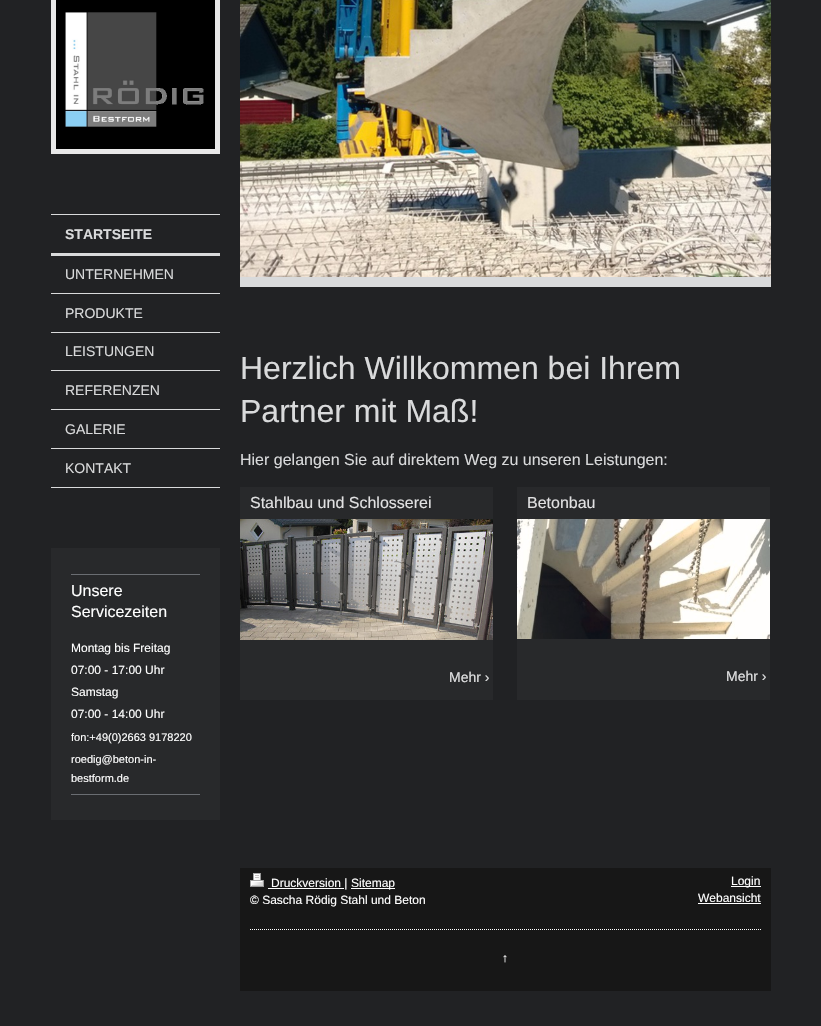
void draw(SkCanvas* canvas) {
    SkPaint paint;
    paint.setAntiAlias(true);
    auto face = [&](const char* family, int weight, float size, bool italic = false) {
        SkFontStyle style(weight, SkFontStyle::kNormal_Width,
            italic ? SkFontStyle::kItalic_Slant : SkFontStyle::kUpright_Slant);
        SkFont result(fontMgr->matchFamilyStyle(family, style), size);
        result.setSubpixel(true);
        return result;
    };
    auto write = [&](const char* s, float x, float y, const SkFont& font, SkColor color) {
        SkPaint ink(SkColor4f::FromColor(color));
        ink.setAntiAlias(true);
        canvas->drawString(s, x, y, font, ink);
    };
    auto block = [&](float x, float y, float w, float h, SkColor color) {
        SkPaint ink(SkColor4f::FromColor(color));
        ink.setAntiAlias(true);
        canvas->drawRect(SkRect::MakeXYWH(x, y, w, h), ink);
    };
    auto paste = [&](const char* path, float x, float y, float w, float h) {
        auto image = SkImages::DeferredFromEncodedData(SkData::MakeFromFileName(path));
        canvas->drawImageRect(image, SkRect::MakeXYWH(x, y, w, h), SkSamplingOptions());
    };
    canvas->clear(SkColorSetRGB(33, 34, 36));
    block(51, 0, 169, 154, SkColorSetRGB(232, 232, 232));
    paste("pic1.png", 56, 0, 159, 149);
    block(51, 214, 169, 1, SkColorSetRGB(217, 218, 219));
    block(51, 253, 169, 3, SkColorSetRGB(217, 218, 219));
    auto kFont1 = face("Liberation Sans", 700, 14);
    write("STARTSEITE", 65, 239, kFont1, SkColorSetRGB(217, 218, 219));
    block(51, 293, 169, 1, SkColorSetRGB(217, 218, 219));
    auto kFont2 = face("Liberation Sans", 400, 14);
    write("UNTERNEHMEN", 65, 279, kFont2, SkColorSetRGB(217, 218, 219));
    block(51, 332, 169, 1, SkColorSetRGB(217, 218, 219));
    write("PRODUKTE", 65, 318, kFont2, SkColorSetRGB(217, 218, 219));
    block(51, 370, 169, 1, SkColorSetRGB(217, 218, 219));
    write("LEISTUNGEN", 65, 356, kFont2, SkColorSetRGB(217, 218, 219));
    block(51, 409, 169, 1, SkColorSetRGB(217, 218, 219));
    write("REFERENZEN", 65, 395, kFont2, SkColorSetRGB(217, 218, 219));
    block(51, 448, 169, 1, SkColorSetRGB(217, 218, 219));
    write("GALERIE", 65, 434, kFont2, SkColorSetRGB(217, 218, 219));
    block(51, 487, 169, 1, SkColorSetRGB(217, 218, 219));
    write("KONTAKT", 65, 473, kFont2, SkColorSetRGB(217, 218, 219));
    block(51, 548, 169, 272, SkColorSetRGB(40, 41, 43));
    block(71, 574, 129, 1, SkColorSetRGB(106, 109, 114));
    auto kFont3 = face("Liberation Sans", 400, 16);
    write("Unsere", 71, 596, kFont3, SK_ColorWHITE);
    write("Servicezeiten", 71, 617, kFont3, SK_ColorWHITE);
    auto kFont4 = face("Liberation Sans", 400, 12);
    write("Montag bis Freitag", 71, 652, kFont4, SK_ColorWHITE);
    write("07:00 - 17:00 Uhr", 71, 674, kFont4, SK_ColorWHITE);
    write("Samstag", 71, 696, kFont4, SK_ColorWHITE);
    write("07:00 - 14:00 Uhr", 71, 718, kFont4, SK_ColorWHITE);
    auto kFont5 = face("Liberation Sans", 400, 11);
    write("fon:+49(0)2663 9178220", 71, 741, kFont5, SK_ColorWHITE);
    write("roedig@beton-in-", 71, 763, kFont5, SK_ColorWHITE);
    write("bestform.de", 71, 782, kFont5, SK_ColorWHITE);
    block(71, 794, 129, 1, SkColorSetRGB(106, 109, 114));
    block(240, 277, 531, 10, SkColorSetRGB(217, 218, 219));
    paste("pic2.png", 240, 0, 531, 277);
    auto kFont6 = face("Liberation Sans", 400, 32);
    write("Herzlich Willkommen bei Ihrem", 240, 379, kFont6, SkColorSetRGB(217, 218, 219));
    write("Partner mit Maß!", 240, 422, kFont6, SkColorSetRGB(217, 218, 219));
    write("Hier gelangen Sie auf direktem Weg zu unseren Leistungen:", 240, 465, kFont3, SkColorSetRGB(217, 218, 219));
    block(240, 487, 253, 213, SkColorSetRGB(40, 41, 43));
    write("Stahlbau und Schlosserei", 250, 508, kFont3, SkColorSetRGB(225, 225, 226));
    paste("pic3.png", 240, 519, 253, 121);
    write("Mehr ›", 449, 682, kFont2, SkColorSetRGB(225, 225, 226));
    block(517, 487, 253, 213, SkColorSetRGB(40, 41, 43));
    write("Betonbau", 527, 508, kFont3, SkColorSetRGB(225, 225, 226));
    paste("pic4.png", 517, 519, 253, 120);
    write("Mehr ›", 726, 681, kFont2, SkColorSetRGB(225, 225, 226));
    block(240, 868, 531, 123, SkColorSetRGB(23, 23, 23));
    paste("pic5.png", 250, 873, 14, 14);
    block(268, 888, 76, 1, SK_ColorWHITE);
    write("Druckversion |", 271, 887, kFont4, SK_ColorWHITE);
    block(351, 888, 44, 1, SK_ColorWHITE);
    write("Sitemap", 351, 887, kFont4, SK_ColorWHITE);
    write("© Sascha Rödig Stahl und Beton", 250, 904, kFont4, SK_ColorWHITE);
    block(731, 886, 30, 1, SK_ColorWHITE);
    write("Login", 731, 885, kFont4, SK_ColorWHITE);
    write("Webansicht", 698, 902, kFont4, SK_ColorWHITE);
    block(698, 903, 63, 1, SK_ColorWHITE);
    paint.setStyle(SkPaint::kStroke_Style);
    paint.setStrokeWidth(1);
    paint.setColor(SK_ColorWHITE);
    paint.setPathEffect(SkDashPathEffect::Make({{1, 1}}, 0));
    canvas->drawPath(SkPathBuilder().moveTo(250, 929.5f).lineTo(761, 929.5f).detach(), paint);
    paint.setPathEffect(nullptr);
    write("↑", 502, 962, kFont4, SK_ColorWHITE);
}
